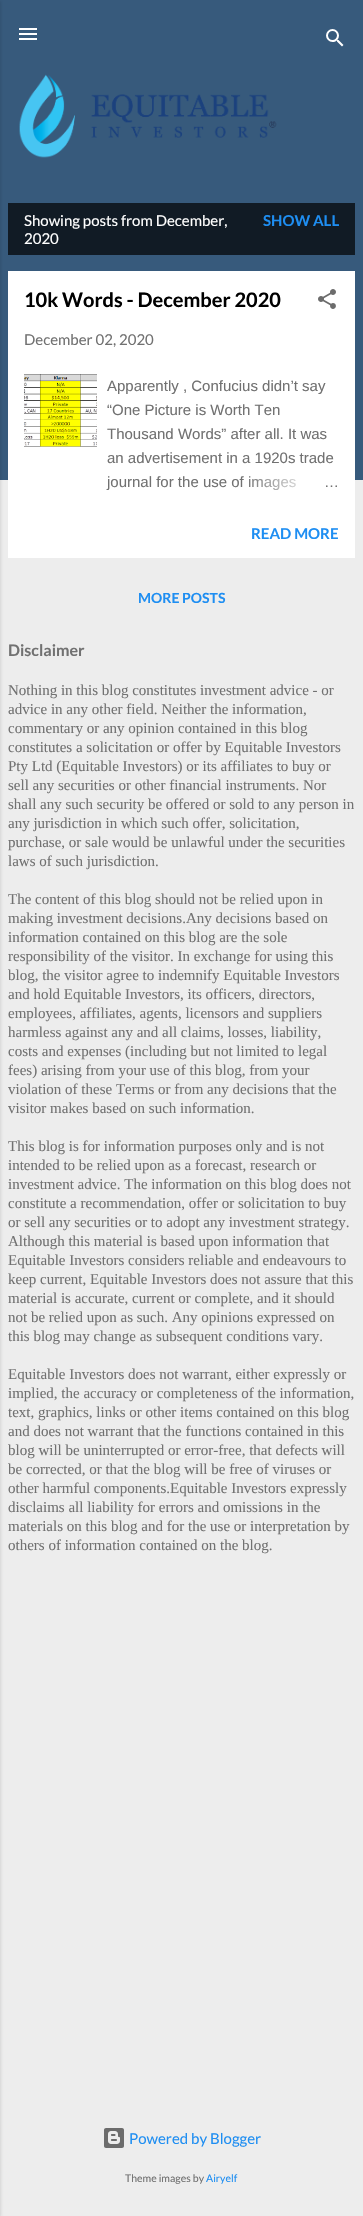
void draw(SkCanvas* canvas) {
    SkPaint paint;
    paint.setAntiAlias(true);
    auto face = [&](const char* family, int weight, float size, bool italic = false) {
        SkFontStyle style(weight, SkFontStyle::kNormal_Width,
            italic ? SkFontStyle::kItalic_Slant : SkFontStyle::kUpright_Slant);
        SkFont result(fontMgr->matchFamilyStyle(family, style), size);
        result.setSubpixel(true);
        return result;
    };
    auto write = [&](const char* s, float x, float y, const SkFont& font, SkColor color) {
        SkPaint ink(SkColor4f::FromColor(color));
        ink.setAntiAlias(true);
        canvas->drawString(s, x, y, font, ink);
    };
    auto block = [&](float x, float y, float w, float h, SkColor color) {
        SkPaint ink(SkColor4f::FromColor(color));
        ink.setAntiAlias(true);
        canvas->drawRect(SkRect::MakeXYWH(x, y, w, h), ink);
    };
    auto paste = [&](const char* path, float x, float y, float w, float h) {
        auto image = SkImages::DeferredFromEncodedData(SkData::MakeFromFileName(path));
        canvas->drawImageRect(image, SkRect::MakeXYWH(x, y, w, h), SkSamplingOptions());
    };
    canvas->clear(SkColorSetRGB(237, 237, 237));
    block(0, 0, 363, 480, SkColorSetRGB(55, 90, 124));
    paint.setColor(SkColorSetARGB(26, 0, 0, 0));
    paint.setMaskFilter(SkMaskFilter::MakeBlur(kNormal_SkBlurStyle, 1.5f));
    canvas->drawRect(SkRect::MakeXYWH(-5, 1, 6, 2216), paint);
    paint.setMaskFilter(nullptr);
    paste("pic1.png", 19, 28, 18, 12);
    paste("pic2.png", 326, 29, 18, 18);
    paste("pic3.png", 19, 74, 258, 84);
    block(8, 203, 347, 52, SkColorSetRGB(17, 27, 37));
    auto kFont1 = face("Lato", 400, 15);
    write("Showing posts from December,", 24, 226, kFont1, SK_ColorWHITE);
    write("2020", 24, 244, kFont1, SK_ColorWHITE);
    auto kFont2 = face("Lato", 700, 15);
    write("SHOW ALL", 263, 226, kFont2, SkColorSetRGB(30, 142, 242));
    block(8, 271, 347, 287, SK_ColorWHITE);
    auto kFont3 = face("Lato", 700, 20);
    write("10k Words - December 2020", 24, 307, kFont3, SK_ColorBLACK);
    paste("pic4.png", 318, 289, 18, 20);
    write("December 02, 2020", 24, 345, kFont1, SkColorSetRGB(113, 113, 113));
    paste("pic5.png", 24, 374, 73, 73);
    auto kFont4 = face("Liberation Sans", 400, 15);
    write("Apparently , Confucius didn’t say", 107, 391, kFont4, SkColorSetRGB(113, 113, 113));
    write("“One Picture is Worth Ten", 107, 415, kFont4, SkColorSetRGB(113, 113, 113));
    write("Thousand Words” after all. It was", 107, 439, kFont4, SkColorSetRGB(113, 113, 113));
    write("an advertisement in a 1920s trade", 107, 463, kFont4, SkColorSetRGB(113, 113, 113));
    write("journal for the use of images", 107, 487, kFont4, SkColorSetRGB(113, 113, 113));
    {
        const SkColor colors[] = {SK_ColorWHITE, SK_ColorWHITE, SkColorSetARGB(0, 255, 255, 255)};
        const float stops[] = {0, 0.2f, 1};
        const SkPoint ends[] = {{339, 482}, {243, 482}};
        paint.setShader(SkGradientShader::MakeLinear(ends, colors, stops, 3, SkTileMode::kClamp));
        paint.setAlpha(255);
    }
    canvas->drawRect(SkRect::MakeXYWH(249, 476, 48, 15), paint);
    write("…", 324, 487, kFont4, SkColorSetRGB(113, 113, 113));
    write("READ MORE", 251, 539, kFont2, SkColorSetRGB(30, 142, 242));
    auto kFont5 = face("Lato", 700, 14);
    write("MORE POSTS", 138, 603, kFont5, SkColorSetRGB(30, 142, 242));
    auto kFont6 = face("Lato", 700, 16);
    write("Disclaimer", 8, 656, kFont6, SkColorSetRGB(113, 113, 113));
    auto kFont7 = face("Liberation Serif", 400, 15);
    write("Nothing in this blog constitutes investment advice - or", 8, 695, kFont7, SkColorSetRGB(113, 113, 113));
    write("advice in any other field. Neither the information,", 8, 714, kFont7, SkColorSetRGB(113, 113, 113));
    write("commentary or any opinion contained in this blog", 8, 733, kFont7, SkColorSetRGB(113, 113, 113));
    write("constitutes a solicitation or offer by Equitable Investors", 8, 752, kFont7, SkColorSetRGB(113, 113, 113));
    write("Pty Ltd (Equitable Investors) or its affiliates to buy or", 8, 771, kFont7, SkColorSetRGB(113, 113, 113));
    write("sell any securities or other financial instruments. Nor", 8, 790, kFont7, SkColorSetRGB(113, 113, 113));
    write("shall any such security be offered or sold to any person in", 8, 809, kFont7, SkColorSetRGB(113, 113, 113));
    write("any jurisdiction in which such offer, solicitation,", 8, 828, kFont7, SkColorSetRGB(113, 113, 113));
    write("purchase, or sale would be unlawful under the securities", 8, 847, kFont7, SkColorSetRGB(113, 113, 113));
    write("laws of such jurisdiction.", 8, 866, kFont7, SkColorSetRGB(113, 113, 113));
    write("The content of this blog should not be relied upon in", 8, 904, kFont7, SkColorSetRGB(113, 113, 113));
    write("making investment decisions.Any decisions based on", 8, 923, kFont7, SkColorSetRGB(113, 113, 113));
    write("information contained on this blog are the sole", 8, 942, kFont7, SkColorSetRGB(113, 113, 113));
    write("responsibility of the visitor. In exchange for using this", 8, 961, kFont7, SkColorSetRGB(113, 113, 113));
    write("blog, the visitor agree to indemnify Equitable Investors", 8, 980, kFont7, SkColorSetRGB(113, 113, 113));
    write("and hold Equitable Investors, its officers, directors,", 8, 999, kFont7, SkColorSetRGB(113, 113, 113));
    write("employees, affiliates, agents, licensors and suppliers", 8, 1018, kFont7, SkColorSetRGB(113, 113, 113));
    write("harmless against any and all claims, losses, liability,", 8, 1037, kFont7, SkColorSetRGB(113, 113, 113));
    write("costs and expenses (including but not limited to legal", 8, 1056, kFont7, SkColorSetRGB(113, 113, 113));
    write("fees) arising from your use of this blog, from your", 8, 1075, kFont7, SkColorSetRGB(113, 113, 113));
    write("violation of these Terms or from any decisions that the", 8, 1094, kFont7, SkColorSetRGB(113, 113, 113));
    write("visitor makes based on such information.", 8, 1113, kFont7, SkColorSetRGB(113, 113, 113));
    write("This blog is for information purposes only and is not", 8, 1151, kFont7, SkColorSetRGB(113, 113, 113));
    write("intended to be relied upon as a forecast, research or", 8, 1170, kFont7, SkColorSetRGB(113, 113, 113));
    write("investment advice. The information on this blog does not", 8, 1189, kFont7, SkColorSetRGB(113, 113, 113));
    write("constitute a recommendation, offer or solicitation to buy", 8, 1208, kFont7, SkColorSetRGB(113, 113, 113));
    write("or sell any securities or to adopt any investment strategy.", 8, 1227, kFont7, SkColorSetRGB(113, 113, 113));
    write("Although this material is based upon information that", 8, 1246, kFont7, SkColorSetRGB(113, 113, 113));
    write("Equitable Investors considers reliable and endeavours to", 8, 1265, kFont7, SkColorSetRGB(113, 113, 113));
    write("keep current, Equitable Investors does not assure that this", 8, 1284, kFont7, SkColorSetRGB(113, 113, 113));
    write("material is accurate, current or complete, and it should", 8, 1303, kFont7, SkColorSetRGB(113, 113, 113));
    write("not be relied upon as such. Any opinions expressed on", 8, 1322, kFont7, SkColorSetRGB(113, 113, 113));
    write("this blog may change as subsequent conditions vary.", 8, 1341, kFont7, SkColorSetRGB(113, 113, 113));
    write("Equitable Investors does not warrant, either expressly or", 8, 1379, kFont7, SkColorSetRGB(113, 113, 113));
    write("implied, the accuracy or completeness of the information,", 8, 1398, kFont7, SkColorSetRGB(113, 113, 113));
    write("text, graphics, links or other items contained on this blog", 8, 1417, kFont7, SkColorSetRGB(113, 113, 113));
    write("and does not warrant that the functions contained in this", 8, 1436, kFont7, SkColorSetRGB(113, 113, 113));
    write("blog will be uninterrupted or error-free, that defects will", 8, 1455, kFont7, SkColorSetRGB(113, 113, 113));
    write("be corrected, or that the blog will be free of viruses or", 8, 1474, kFont7, SkColorSetRGB(113, 113, 113));
    write("other harmful components.Equitable Investors expressly", 8, 1493, kFont7, SkColorSetRGB(113, 113, 113));
    write("disclaims all liability for errors and omissions in the", 8, 1512, kFont7, SkColorSetRGB(113, 113, 113));
    write("materials on this blog and for the use or interpretation by", 8, 1531, kFont7, SkColorSetRGB(113, 113, 113));
    write("others of information contained on the blog.", 8, 1550, kFont7, SkColorSetRGB(113, 113, 113));
    paste("pic6.png", 104, 2128, 20, 20);
    write("Powered by Blogger", 129, 2144, kFont1, SkColorSetRGB(30, 142, 242));
    auto kFont8 = face("Lato", 400, 10.5f);
    write("Theme images by", 125, 2182, kFont8, SkColorSetRGB(113, 113, 113));
    write("Airyelf", 206, 2182, kFont8, SkColorSetRGB(30, 142, 242));
}
